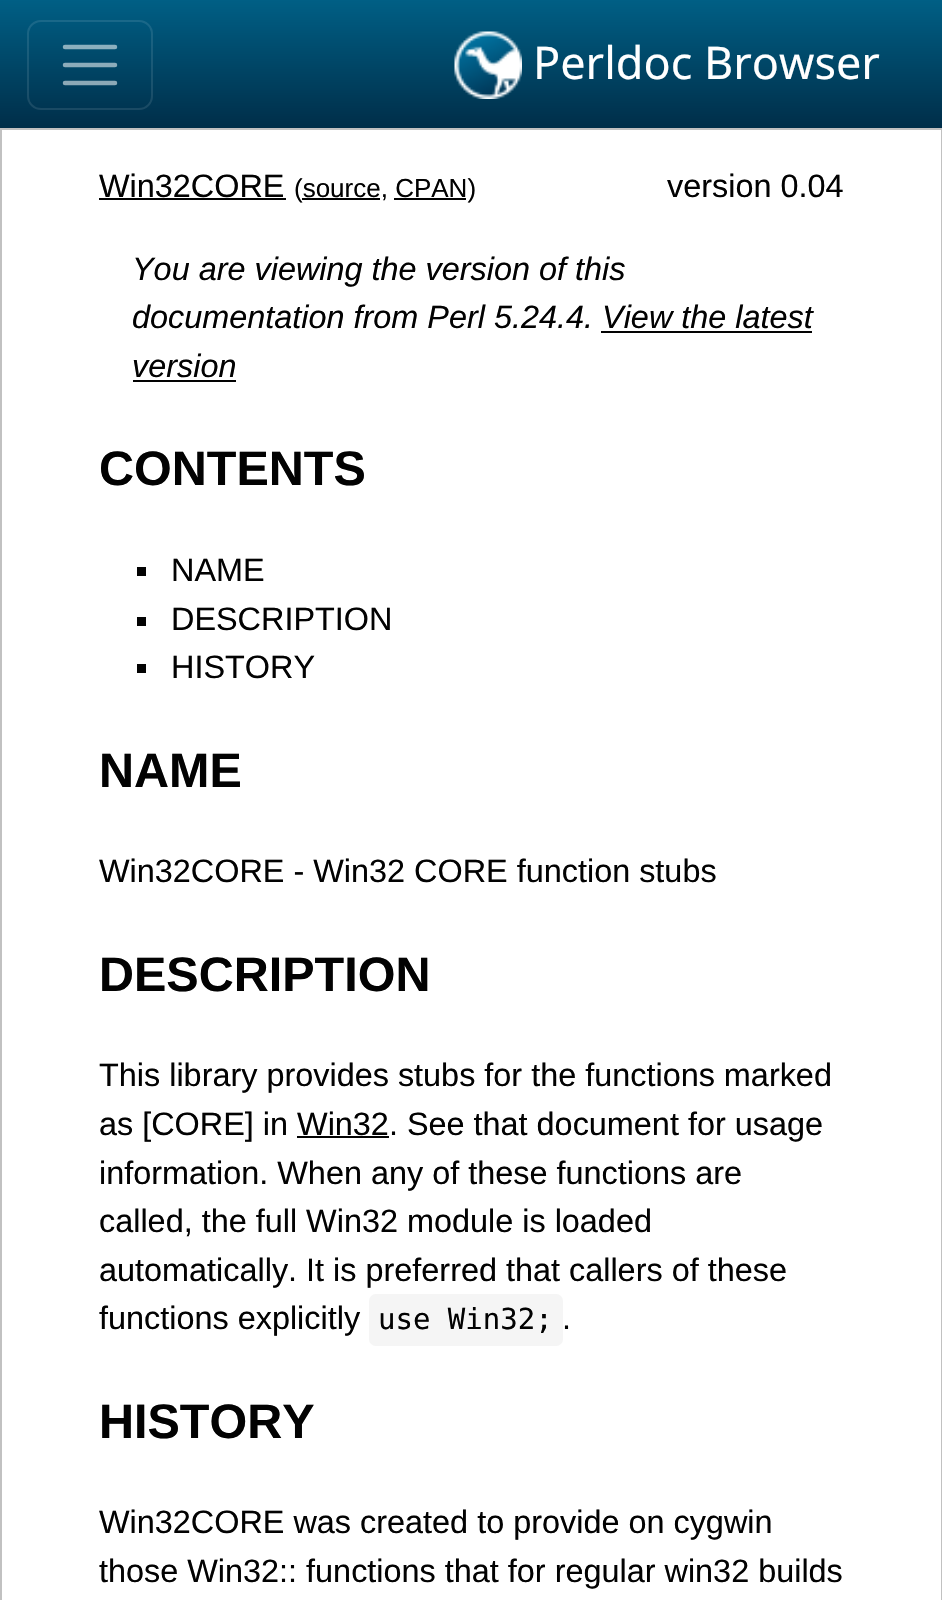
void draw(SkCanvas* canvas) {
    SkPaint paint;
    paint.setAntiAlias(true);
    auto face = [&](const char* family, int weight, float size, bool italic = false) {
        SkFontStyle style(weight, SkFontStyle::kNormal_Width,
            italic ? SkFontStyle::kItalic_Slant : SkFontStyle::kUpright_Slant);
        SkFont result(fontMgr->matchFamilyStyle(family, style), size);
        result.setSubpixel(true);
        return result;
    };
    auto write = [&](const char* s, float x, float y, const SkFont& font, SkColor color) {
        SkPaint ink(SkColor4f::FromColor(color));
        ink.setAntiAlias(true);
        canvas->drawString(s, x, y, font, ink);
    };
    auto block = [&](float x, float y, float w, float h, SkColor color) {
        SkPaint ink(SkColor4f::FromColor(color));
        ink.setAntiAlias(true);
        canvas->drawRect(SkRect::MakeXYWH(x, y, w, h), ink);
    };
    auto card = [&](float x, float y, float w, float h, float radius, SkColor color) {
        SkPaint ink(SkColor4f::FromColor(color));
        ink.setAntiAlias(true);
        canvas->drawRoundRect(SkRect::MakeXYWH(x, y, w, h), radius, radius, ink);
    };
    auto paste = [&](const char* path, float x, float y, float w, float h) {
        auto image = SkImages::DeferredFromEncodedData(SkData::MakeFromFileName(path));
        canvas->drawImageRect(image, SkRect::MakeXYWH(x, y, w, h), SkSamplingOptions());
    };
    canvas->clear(SK_ColorWHITE);
    {
        const SkColor colors[] = {SkColorSetRGB(0, 95, 133), SkColorSetRGB(0, 46, 73)};
        const float stops[] = {0, 1};
        const SkPoint ends[] = {{471, 0}, {471, 128}};
        paint.setShader(SkGradientShader::MakeLinear(ends, colors, stops, 2, SkTileMode::kClamp));
        paint.setAlpha(255);
    }
    canvas->drawRect(SkRect::MakeXYWH(0, 0, 942, 128), paint);
    paint.setStyle(SkPaint::kStroke_Style);
    paint.setStrokeWidth(2);
    paint.setShader(nullptr);
    paint.setColor(SkColorSetARGB(26, 255, 255, 255));
    canvas->drawRoundRect(SkRect::MakeXYWH(28, 21, 124, 88), 13, 13, paint);
    paint.setStrokeWidth(4.5f);
    paint.setStrokeCap(SkPaint::kRound_Cap);
    paint.setColor(SkColorSetARGB(140, 255, 255, 255));
    canvas->drawPath(SkPathBuilder().moveTo(65, 47).lineTo(115, 47).moveTo(65, 65).lineTo(115, 65).moveTo(65, 83).lineTo(115, 83).detach(), paint);
    paste("pic1.png", 454, 31, 68, 68);
    auto kFont1 = face("Noto Sans", 400, 45);
    write("Perldoc Browser", 533, 79, kFont1, SK_ColorWHITE);
    paint.setStrokeWidth(2);
    paint.setStrokeCap(SkPaint::kButt_Cap);
    paint.setColor(SkColorSetRGB(193, 193, 193));
    canvas->drawRect(SkRect::MakeXYWH(1, 129, 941, 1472), paint);
    auto kFont2 = face("Liberation Sans", 400, 32.4f);
    write("Win32CORE", 99, 197, kFont2, SkColorSetRGB(2, 2, 2));
    block(99, 198, 187, 2, SkColorSetRGB(2, 2, 2));
    auto kFont3 = face("Liberation Sans", 400, 26);
    write("(source, CPAN)", 294, 197, kFont3, SkColorSetRGB(2, 2, 2));
    block(302, 198, 78, 2, SkColorSetRGB(2, 2, 2));
    block(394, 198, 72, 2, SkColorSetRGB(2, 2, 2));
    write("version 0.04", 667, 197, kFont2, SkColorSetRGB(2, 2, 2));
    auto kFont4 = face("Liberation Sans", 400, 32.4f, true);
    write("You are viewing the version of this", 132, 280, kFont4, SkColorSetRGB(2, 2, 2));
    write("documentation from Perl 5.24.4. View the latest", 132, 328, kFont4, SkColorSetRGB(2, 2, 2));
    write("version", 132, 377, kFont4, SkColorSetRGB(2, 2, 2));
    block(601, 331, 211, 2, SkColorSetRGB(2, 2, 2));
    block(133, 380, 103, 2, SkColorSetRGB(2, 2, 2));
    auto kFont5 = face("Liberation Sans", 700, 48.5f);
    write("CONTENTS", 99, 485, kFont5, SkColorSetRGB(2, 2, 2));
    block(137, 567, 9, 9, SkColorSetRGB(2, 2, 2));
    write("NAME", 171, 581, kFont2, SkColorSetRGB(2, 2, 2));
    block(137, 617, 9, 9, SkColorSetRGB(2, 2, 2));
    write("DESCRIPTION", 171, 630, kFont2, SkColorSetRGB(2, 2, 2));
    block(137, 664, 9, 9, SkColorSetRGB(2, 2, 2));
    write("HISTORY", 171, 678, kFont2, SkColorSetRGB(2, 2, 2));
    write("NAME", 99, 787, kFont5, SkColorSetRGB(2, 2, 2));
    write("Win32CORE - Win32 CORE function stubs", 99, 882, kFont2, SkColorSetRGB(2, 2, 2));
    write("DESCRIPTION", 99, 991, kFont5, SkColorSetRGB(2, 2, 2));
    write("This library provides stubs for the functions marked", 99, 1086, kFont2, SkColorSetRGB(2, 2, 2));
    write("as [CORE] in Win32. See that document for usage", 99, 1135, kFont2, SkColorSetRGB(2, 2, 2));
    block(297, 1136, 92, 2, SkColorSetRGB(2, 2, 2));
    write("information. When any of these functions are", 99, 1184, kFont2, SkColorSetRGB(2, 2, 2));
    write("called, the full Win32 module is loaded", 99, 1232, kFont2, SkColorSetRGB(2, 2, 2));
    write("automatically. It is preferred that callers of these", 99, 1281, kFont2, SkColorSetRGB(2, 2, 2));
    write("functions explicitly", 99, 1329, kFont2, SkColorSetRGB(2, 2, 2));
    card(369, 1294, 194, 52, 7, SkColorSetRGB(245, 245, 245));
    auto kFont6 = face("DejaVu Sans Mono", 400, 29);
    write("use Win32;", 378, 1329, kFont6, SkColorSetRGB(2, 2, 2));
    write(".", 562, 1329, kFont2, SkColorSetRGB(2, 2, 2));
    write("HISTORY", 99, 1438, kFont5, SkColorSetRGB(2, 2, 2));
    write("Win32CORE was created to provide on cygwin", 99, 1533, kFont2, SkColorSetRGB(2, 2, 2));
    write("those Win32:: functions that for regular win32 builds", 99, 1582, kFont2, SkColorSetRGB(2, 2, 2));
}
